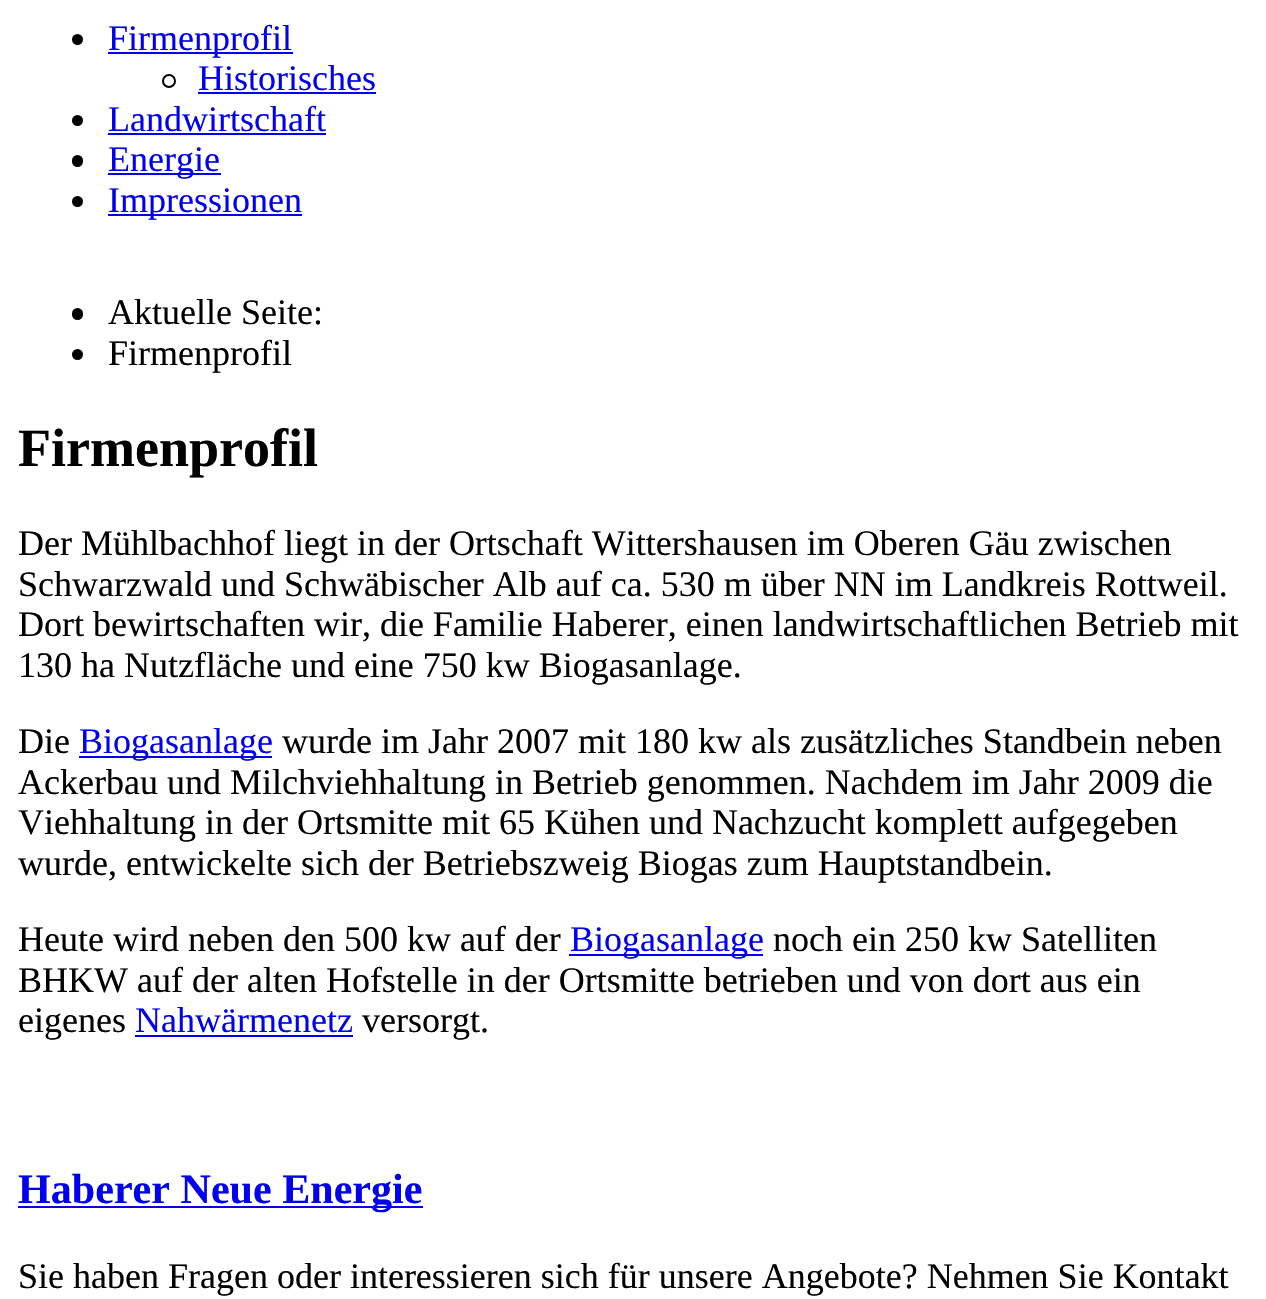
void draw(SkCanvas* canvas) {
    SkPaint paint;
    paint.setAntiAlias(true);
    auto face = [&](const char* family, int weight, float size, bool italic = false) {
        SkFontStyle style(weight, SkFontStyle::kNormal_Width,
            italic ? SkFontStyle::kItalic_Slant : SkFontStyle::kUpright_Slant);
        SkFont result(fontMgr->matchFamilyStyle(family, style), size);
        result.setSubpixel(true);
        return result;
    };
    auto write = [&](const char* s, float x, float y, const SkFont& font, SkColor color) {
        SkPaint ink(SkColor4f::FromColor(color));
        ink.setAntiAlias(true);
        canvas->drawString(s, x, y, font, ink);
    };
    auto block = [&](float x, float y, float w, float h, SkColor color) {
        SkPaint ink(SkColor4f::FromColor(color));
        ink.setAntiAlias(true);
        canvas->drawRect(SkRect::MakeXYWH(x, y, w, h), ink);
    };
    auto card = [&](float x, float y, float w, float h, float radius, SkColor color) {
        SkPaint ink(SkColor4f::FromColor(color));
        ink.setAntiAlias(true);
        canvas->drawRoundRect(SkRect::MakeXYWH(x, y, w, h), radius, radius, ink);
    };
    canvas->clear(SK_ColorWHITE);
    paint.setColor(SK_ColorBLACK);
    canvas->drawCircle(77.5f, 39.5f, 5.5f, paint);
    block(108, 52, 185, 2, SkColorSetRGB(0, 0, 238));
    auto kFont1 = face("Liberation Serif", 400, 36);
    write("Firmenprofil", 108, 50, kFont1, SkColorSetRGB(0, 0, 238));
    paint.setStyle(SkPaint::kStroke_Style);
    paint.setStrokeWidth(2);
    canvas->drawCircle(169, 81, 6, paint);
    write("Historisches", 198, 90, kFont1, SkColorSetRGB(0, 0, 238));
    block(198, 92, 178, 2, SkColorSetRGB(0, 0, 238));
    paint.setStyle(SkPaint::kFill_Style);
    canvas->drawCircle(77.5f, 120.5f, 5.5f, paint);
    write("Landwirtschaft", 108, 131, kFont1, SkColorSetRGB(0, 0, 238));
    block(108, 133, 218, 2, SkColorSetRGB(0, 0, 238));
    card(72, 155, 11, 12, 5.5f, SK_ColorBLACK);
    block(108, 173, 113, 2, SkColorSetRGB(0, 0, 238));
    write("Energie", 108, 171, kFont1, SkColorSetRGB(0, 0, 238));
    canvas->drawCircle(77.5f, 201.5f, 5.5f, paint);
    block(108, 214, 194, 2, SkColorSetRGB(0, 0, 238));
    write("Impressionen", 108, 212, kFont1, SkColorSetRGB(0, 0, 238));
    card(72, 308, 11, 12, 5.5f, SK_ColorBLACK);
    write("Aktuelle Seite:", 108, 324, kFont1, SK_ColorBLACK);
    canvas->drawCircle(77.5f, 354.5f, 5.5f, paint);
    write("Firmenprofil", 108, 365, kFont1, SK_ColorBLACK);
    auto kFont2 = face("Liberation Serif", 700, 54);
    write("Firmenprofil", 18, 466, kFont2, SK_ColorBLACK);
    write("Der Mühlbachhof liegt in der Ortschaft Wittershausen im Oberen Gäu zwischen", 18, 555, kFont1, SK_ColorBLACK);
    write("Schwarzwald und Schwäbischer Alb auf ca. 530 m über NN im Landkreis Rottweil.", 18, 596, kFont1, SK_ColorBLACK);
    write("Dort bewirtschaften wir, die Familie Haberer, einen landwirtschaftlichen Betrieb mit", 18, 636, kFont1, SK_ColorBLACK);
    write("130 ha Nutzfläche und eine 750 kw Biogasanlage.", 18, 677, kFont1, SK_ColorBLACK);
    write("Die", 18, 753, kFont1, SK_ColorBLACK);
    block(79, 756, 193, 2, SkColorSetRGB(0, 0, 238));
    write("Biogasanlage", 79, 753, kFont1, SkColorSetRGB(0, 0, 238));
    write("wurde im Jahr 2007 mit 180 kw als zusätzliches Standbein neben", 282, 753, kFont1, SK_ColorBLACK);
    write("Ackerbau und Milchviehhaltung in Betrieb genommen. Nachdem im Jahr 2009 die", 18, 794, kFont1, SK_ColorBLACK);
    write("Viehhaltung in der Ortsmitte mit 65 Kühen und Nachzucht komplett aufgegeben", 18, 834, kFont1, SK_ColorBLACK);
    write("wurde, entwickelte sich der Betriebszweig Biogas zum Hauptstandbein.", 18, 875, kFont1, SK_ColorBLACK);
    write("Heute wird neben den 500 kw auf der", 18, 951, kFont1, SK_ColorBLACK);
    block(569, 954, 194, 2, SkColorSetRGB(0, 0, 238));
    write("Biogasanlage", 570, 951, kFont1, SkColorSetRGB(0, 0, 238));
    write("noch ein 250 kw Satelliten", 773, 951, kFont1, SK_ColorBLACK);
    write("BHKW auf der alten Hofstelle in der Ortsmitte betrieben und von dort aus ein", 18, 992, kFont1, SK_ColorBLACK);
    write("eigenes", 18, 1032, kFont1, SK_ColorBLACK);
    write("Nahwärmenetz", 135, 1032, kFont1, SkColorSetRGB(0, 0, 238));
    block(135, 1035, 218, 2, SkColorSetRGB(0, 0, 238));
    write("versorgt.", 362, 1032, kFont1, SK_ColorBLACK);
    block(18, 1206, 405, 2, SkColorSetRGB(0, 0, 238));
    auto kFont3 = face("Liberation Serif", 700, 42.1f);
    write("Haberer Neue Energie", 18, 1203, kFont3, SkColorSetRGB(0, 0, 238));
    write("Sie haben Fragen oder interessieren sich für unsere Angebote? Nehmen Sie Kontakt", 18, 1288, kFont1, SK_ColorBLACK);
}
